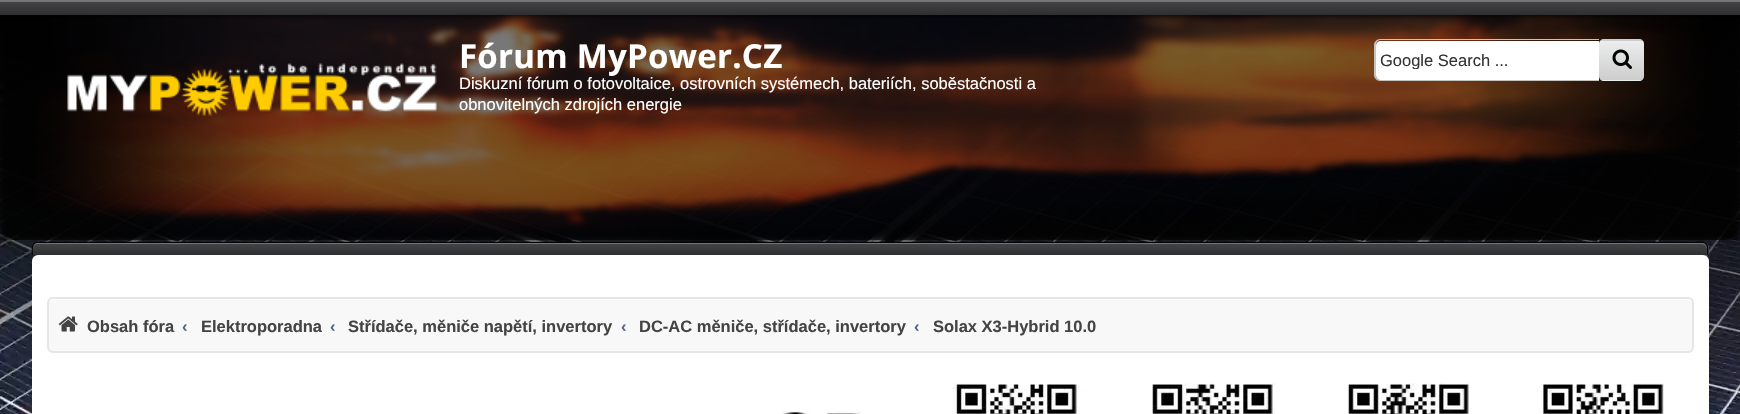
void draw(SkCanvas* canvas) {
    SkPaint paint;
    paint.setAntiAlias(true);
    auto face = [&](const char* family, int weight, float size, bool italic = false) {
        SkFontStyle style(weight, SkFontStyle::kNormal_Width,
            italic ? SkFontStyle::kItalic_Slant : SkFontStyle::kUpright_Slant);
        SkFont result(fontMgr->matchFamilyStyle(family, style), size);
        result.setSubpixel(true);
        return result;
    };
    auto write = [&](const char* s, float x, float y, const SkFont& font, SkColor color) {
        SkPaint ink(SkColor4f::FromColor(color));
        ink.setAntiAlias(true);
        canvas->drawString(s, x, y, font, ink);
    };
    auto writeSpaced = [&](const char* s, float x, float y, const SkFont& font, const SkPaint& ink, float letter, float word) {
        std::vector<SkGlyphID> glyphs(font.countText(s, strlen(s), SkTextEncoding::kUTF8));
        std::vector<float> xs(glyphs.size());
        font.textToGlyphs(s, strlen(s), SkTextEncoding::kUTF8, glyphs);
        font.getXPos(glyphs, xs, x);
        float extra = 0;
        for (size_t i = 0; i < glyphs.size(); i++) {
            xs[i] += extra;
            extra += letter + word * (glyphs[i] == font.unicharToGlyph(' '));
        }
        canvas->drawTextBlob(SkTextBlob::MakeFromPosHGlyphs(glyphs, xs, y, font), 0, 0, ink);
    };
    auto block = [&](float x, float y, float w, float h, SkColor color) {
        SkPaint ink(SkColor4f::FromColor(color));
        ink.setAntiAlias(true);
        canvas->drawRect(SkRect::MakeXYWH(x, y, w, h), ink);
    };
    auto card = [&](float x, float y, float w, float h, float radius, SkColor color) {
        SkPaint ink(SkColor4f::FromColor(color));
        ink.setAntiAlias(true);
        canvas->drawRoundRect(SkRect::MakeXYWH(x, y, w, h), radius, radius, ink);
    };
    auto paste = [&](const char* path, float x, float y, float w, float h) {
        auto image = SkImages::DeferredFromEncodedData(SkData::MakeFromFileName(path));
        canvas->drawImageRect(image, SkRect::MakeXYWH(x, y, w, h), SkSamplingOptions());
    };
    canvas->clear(SK_ColorBLACK);
    {
        const SkColor colors[] = {SkColorSetRGB(68, 69, 71), SkColorSetRGB(47, 47, 49)};
        const float stops[] = {0, 1};
        const SkPoint ends[] = {{870, 0}, {870, 15}};
        paint.setShader(SkGradientShader::MakeLinear(ends, colors, stops, 2, SkTileMode::kClamp));
        paint.setAlpha(255);
    }
    canvas->drawRect(SkRect::MakeXYWH(0, 2, 1740, 13), paint);
    block(0, 0, 1740, 2, SkColorSetRGB(117, 117, 117));
    paste("pic1.png", 0, 18, 1740, 396);
    paste("pic2.png", 0, 15, 1740, 225);
    card(0, 15, 1740, 225, 18, SkColorSetARGB(115, 0, 0, 0));
    auto kFont1 = face("Open Sans", 700, 33);
    paint.setShader(nullptr);
    paint.setColor(SK_ColorWHITE);
    writeSpaced("Fórum MyPower.CZ", 459, 68, kFont1, paint, 0.25f, 0);
    paste("pic3.png", 67, 63, 370, 53);
    auto kFont2 = face("Liberation Sans", 400, 16.5f);
    write("Diskuzní fórum o fotovoltaice, ostrovních systémech, bateriích, soběstačnosti a", 459, 89, kFont2, SK_ColorWHITE);
    write("obnovitelných zdrojích energie", 459, 110, kFont2, SK_ColorWHITE);
    canvas->drawPath(SkPathBuilder().moveTo(1381, 41).lineTo(1599, 41).lineTo(1599, 80).lineTo(1381, 80).cubicTo(1378, 80, 1376, 78, 1376, 75).lineTo(1376, 46).cubicTo(1376, 43, 1378, 41, 1381, 41).close().detach(), paint);
    paint.setColor(SkColorSetRGB(199, 195, 191));
    canvas->drawPath(SkPathBuilder(SkPathFillType::kEvenOdd).moveTo(1380, 39).lineTo(1599, 39).lineTo(1599, 81).lineTo(1380, 81).cubicTo(1377, 81, 1374, 78, 1374, 75).lineTo(1374, 45).cubicTo(1374, 42, 1377, 39, 1380, 39).close().moveTo(1380, 40).lineTo(1599, 40).lineTo(1599, 80).lineTo(1380, 80).cubicTo(1378, 80, 1376, 77, 1376, 75).lineTo(1376, 45).cubicTo(1376, 43, 1378, 40, 1380, 40).close().detach(), paint);
    canvas->save();
    canvas->clipRect(SkRect::MakeXYWH(1380, 51, 209, 18));
    write("Google Search ...", 1380, 66, kFont2, SkColorSetRGB(51, 51, 51));
    canvas->restore();
    canvas->save();
    canvas->clipPath(SkPathBuilder().moveTo(1604, 39).lineTo(1639, 39).cubicTo(1642, 39, 1644, 41, 1644, 44).lineTo(1644, 76).cubicTo(1644, 79, 1642, 81, 1639, 81).lineTo(1604, 81).cubicTo(1601, 81, 1599, 79, 1599, 76).lineTo(1599, 44).cubicTo(1599, 41, 1601, 39, 1604, 39).close().detach(), true);
    {
        const SkColor colors[] = {SkColorSetRGB(236, 237, 238), SkColorSetRGB(205, 205, 205)};
        const float stops[] = {0, 1};
        const SkPoint ends[] = {{1622, 1.5f}, {1622, 41}};
        paint.setShader(SkGradientShader::MakeLinear(ends, colors, stops, 2, SkTileMode::kClamp));
        paint.setAlpha(255);
    }
    canvas->drawRect(SkRect::MakeXYWH(1599, 39, 45, 2), paint);
    {
        const SkColor colors[] = {SkColorSetRGB(236, 237, 238), SkColorSetRGB(205, 205, 205)};
        const float stops[] = {0, 1};
        const SkPoint ends[] = {{1622, 41}, {1622, 80}};
        paint.setShader(SkGradientShader::MakeLinear(ends, colors, stops, 2, SkTileMode::kClamp));
        paint.setAlpha(255);
    }
    canvas->drawRect(SkRect::MakeXYWH(1599, 41, 45, 39), paint);
    {
        const SkColor colors[] = {SkColorSetRGB(236, 237, 238), SkColorSetRGB(205, 205, 205)};
        const float stops[] = {0, 1};
        const SkPoint ends[] = {{1622, 80}, {1622, 119}};
        paint.setShader(SkGradientShader::MakeLinear(ends, colors, stops, 2, SkTileMode::kClamp));
        paint.setAlpha(255);
    }
    canvas->drawRect(SkRect::MakeXYWH(1599, 80, 45, 1), paint);
    canvas->restore();
    paste("pic4.png", 1612, 49, 20, 20);
    paint.setShader(nullptr);
    paint.setColor(SkColorSetARGB(26, 0, 0, 0));
    paint.setMaskFilter(SkMaskFilter::MakeBlur(kNormal_SkBlurStyle, 7));
    canvas->drawRoundRect(SkRect::MakeXYWH(32, 263, 1677, 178), 6, 6, paint);
    paint.setMaskFilter(nullptr);
    canvas->save();
    canvas->clipPath(SkPathBuilder().moveTo(38, 242).lineTo(1703, 242).cubicTo(1706.5f, 242, 1709, 244.5f, 1709, 248).lineTo(1709, 255).lineTo(32, 255).lineTo(32, 248).cubicTo(32, 244.5f, 34.5f, 242, 38, 242).close().detach(), true);
    {
        const SkColor colors[] = {SkColorSetRGB(68, 69, 71), SkColorSetRGB(47, 47, 49)};
        const float stops[] = {0, 1};
        const SkPoint ends[] = {{870, 231}, {870, 243}};
        paint.setShader(SkGradientShader::MakeLinear(ends, colors, stops, 2, SkTileMode::kClamp));
        paint.setAlpha(255);
    }
    canvas->drawRect(SkRect::MakeXYWH(32, 242, 1677, 1), paint);
    {
        const SkColor colors[] = {SkColorSetRGB(68, 69, 71), SkColorSetRGB(47, 47, 49)};
        const float stops[] = {0, 1};
        const SkPoint ends[] = {{870, 243}, {870, 255}};
        paint.setShader(SkGradientShader::MakeLinear(ends, colors, stops, 2, SkTileMode::kClamp));
        paint.setAlpha(255);
    }
    canvas->drawRect(SkRect::MakeXYWH(32, 243, 1677, 12), paint);
    canvas->restore();
    paint.setShader(nullptr);
    paint.setColor(SkColorSetRGB(117, 117, 117));
    canvas->drawPath(SkPathBuilder().moveTo(38, 244).lineTo(1702, 244).cubicTo(1705, 244, 1707, 247, 1707, 249).lineTo(1707, 248).cubicTo(1707, 245, 1705, 243, 1702, 243).lineTo(38, 243).cubicTo(35, 243, 33, 245, 33, 248).cubicTo(33, 246, 35, 244, 38, 244).close().detach(), paint);
    paint.setColor(SK_ColorBLACK);
    canvas->drawPath(SkPathBuilder(SkPathFillType::kEvenOdd).moveTo(38, 242).lineTo(1702, 242).cubicTo(1706, 242, 1708, 244, 1708, 248).lineTo(1708, 255).lineTo(32, 255).cubicTo(32, 250, 30, 242, 38, 242).close().moveTo(38, 243).lineTo(1702, 243).cubicTo(1705, 243, 1707, 245, 1707, 248).lineTo(1707, 255).lineTo(33, 255).cubicTo(33, 251, 31, 243, 38, 243).close().detach(), paint);
    card(32, 255, 1677, 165, 6, SK_ColorWHITE);
    card(47, 297, 1647, 56, 6, SkColorSetRGB(248, 248, 248));
    paint.setColor(SK_ColorWHITE);
    canvas->drawPath(SkPathBuilder().moveTo(52, 300).lineTo(1688, 300).cubicTo(1690, 300, 1692, 302, 1692, 304).cubicTo(1692, 301, 1690, 299, 1687, 299).lineTo(53, 299).cubicTo(50, 299, 48, 301, 48, 304).cubicTo(48, 302, 50, 300, 52, 300).close().detach(), paint);
    paint.setStyle(SkPaint::kStroke_Style);
    paint.setStrokeWidth(2);
    paint.setColor(SkColorSetRGB(230, 230, 230));
    canvas->drawRoundRect(SkRect::MakeXYWH(48, 298, 1645, 54), 5, 5, paint);
    paste("pic5.png", 58, 316, 20, 16);
    auto kFont3 = face("Liberation Sans", 700, 16.5f);
    write("Obsah fóra", 87, 332, kFont3, SkColorSetRGB(68, 68, 68));
    write("‹", 182, 332, kFont3, SkColorSetRGB(83, 100, 130));
    write("Elektroporadna", 201, 332, kFont3, SkColorSetRGB(68, 68, 68));
    write("‹", 330, 332, kFont3, SkColorSetRGB(83, 100, 130));
    write("Střídače, měniče napětí, invertory", 348, 332, kFont3, SkColorSetRGB(68, 68, 68));
    write("‹", 621, 332, kFont3, SkColorSetRGB(83, 100, 130));
    write("DC-AC měniče, střídače, invertory", 639, 332, kFont3, SkColorSetRGB(68, 68, 68));
    write("‹", 914, 332, kFont3, SkColorSetRGB(83, 100, 130));
    write("Solax X3-Hybrid 10.0", 933, 332, kFont3, SkColorSetRGB(68, 68, 68));
    paste("pic6.png", 781, 383, 883, 31);
}
